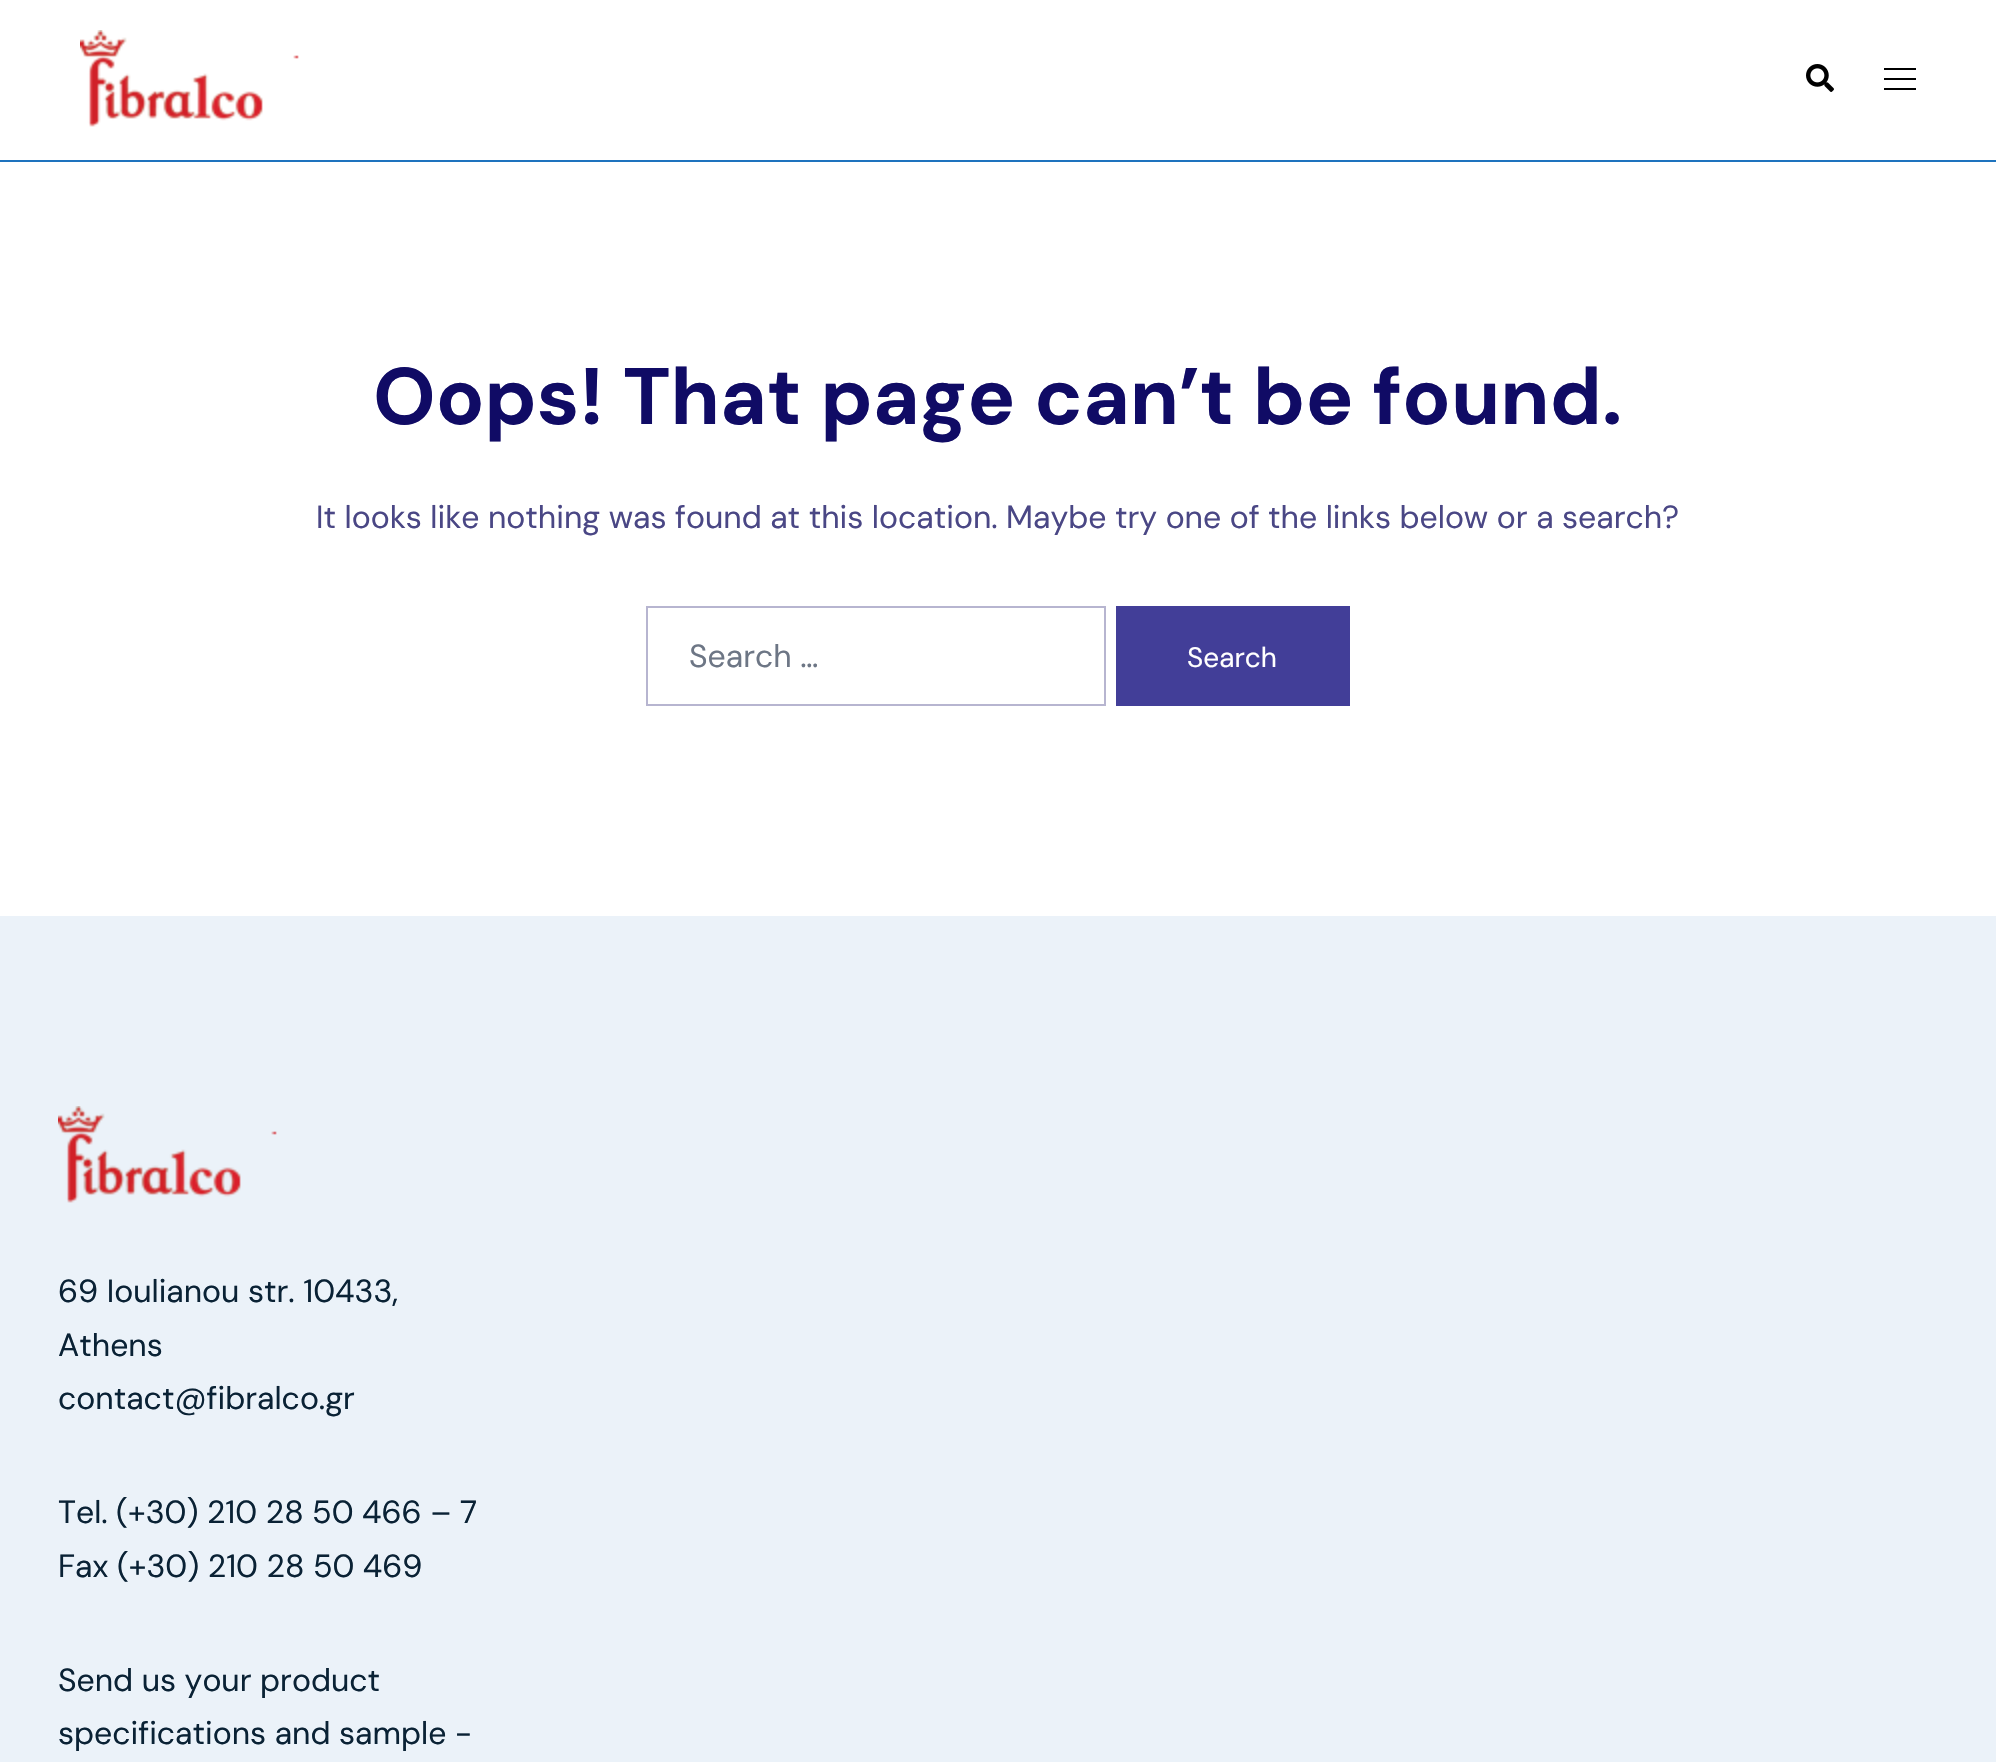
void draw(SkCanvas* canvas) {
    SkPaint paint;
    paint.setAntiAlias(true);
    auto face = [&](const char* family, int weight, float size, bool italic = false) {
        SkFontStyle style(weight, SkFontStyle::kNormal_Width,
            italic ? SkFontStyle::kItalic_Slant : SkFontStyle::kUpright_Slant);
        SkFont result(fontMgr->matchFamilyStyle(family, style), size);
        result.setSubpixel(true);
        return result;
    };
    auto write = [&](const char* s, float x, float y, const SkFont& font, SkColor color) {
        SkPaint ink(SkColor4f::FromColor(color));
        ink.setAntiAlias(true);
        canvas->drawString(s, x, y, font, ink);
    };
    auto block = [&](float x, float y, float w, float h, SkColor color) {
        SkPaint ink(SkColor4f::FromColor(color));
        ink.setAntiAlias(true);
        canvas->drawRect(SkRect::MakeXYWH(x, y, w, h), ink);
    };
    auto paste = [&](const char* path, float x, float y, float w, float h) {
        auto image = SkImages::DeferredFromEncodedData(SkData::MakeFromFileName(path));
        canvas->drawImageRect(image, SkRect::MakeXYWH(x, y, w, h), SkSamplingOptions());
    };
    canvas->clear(SK_ColorWHITE);
    block(0, 160, 1996, 2, SkColorSetRGB(30, 115, 190));
    paste("pic1.png", 80, 30, 219, 97);
    paste("pic2.png", 1806, 64, 28, 28);
    block(1884, 68, 32, 2, SK_ColorBLACK);
    block(1884, 78, 32, 2, SK_ColorBLACK);
    block(1884, 88, 32, 2, SK_ColorBLACK);
    auto kFont1 = face("DM Sans", 700, 80);
    write("Oops! That page can’t be found.", 373, 424, kFont1, SkColorSetRGB(16, 11, 101));
    auto kFont2 = face("DM Sans", 400, 32);
    write("It looks like nothing was found at this location. Maybe try one of the links below or a search?", 316, 528, kFont2, SkColorSetRGB(74, 71, 133));
    paint.setStyle(SkPaint::kStroke_Style);
    paint.setStrokeWidth(2);
    paint.setColor(SkColorSetRGB(183, 181, 208));
    canvas->drawRect(SkRect::MakeXYWH(647, 607, 458, 98), paint);
    write("Search …", 689, 667, kFont2, SkColorSetRGB(109, 118, 133));
    block(1116, 606, 234, 100, SkColorSetRGB(66, 62, 152));
    auto kFont3 = face("DM Sans", 400, 28);
    write("Search", 1187, 667, kFont3, SK_ColorWHITE);
    block(0, 916, 1996, 846, SkColorSetRGB(235, 242, 249));
    paste("pic3.png", 58, 1106, 219, 97);
    write("69 Ioulianou str. 10433,", 58, 1302, kFont2, SkColorSetRGB(10, 34, 53));
    write("Athens", 58, 1356, kFont2, SkColorSetRGB(10, 34, 53));
    write("contact@fibralco.gr", 58, 1409, kFont2, SkColorSetRGB(10, 34, 53));
    write("Tel. (+30) 210 28 50 466 – 7", 58, 1523, kFont2, SkColorSetRGB(10, 34, 53));
    write("Fax (+30) 210 28 50 469", 58, 1577, kFont2, SkColorSetRGB(10, 34, 53));
    write("Send us your product", 58, 1691, kFont2, SkColorSetRGB(10, 34, 53));
    write("specifications and sample -", 58, 1744, kFont2, SkColorSetRGB(10, 34, 53));
}
